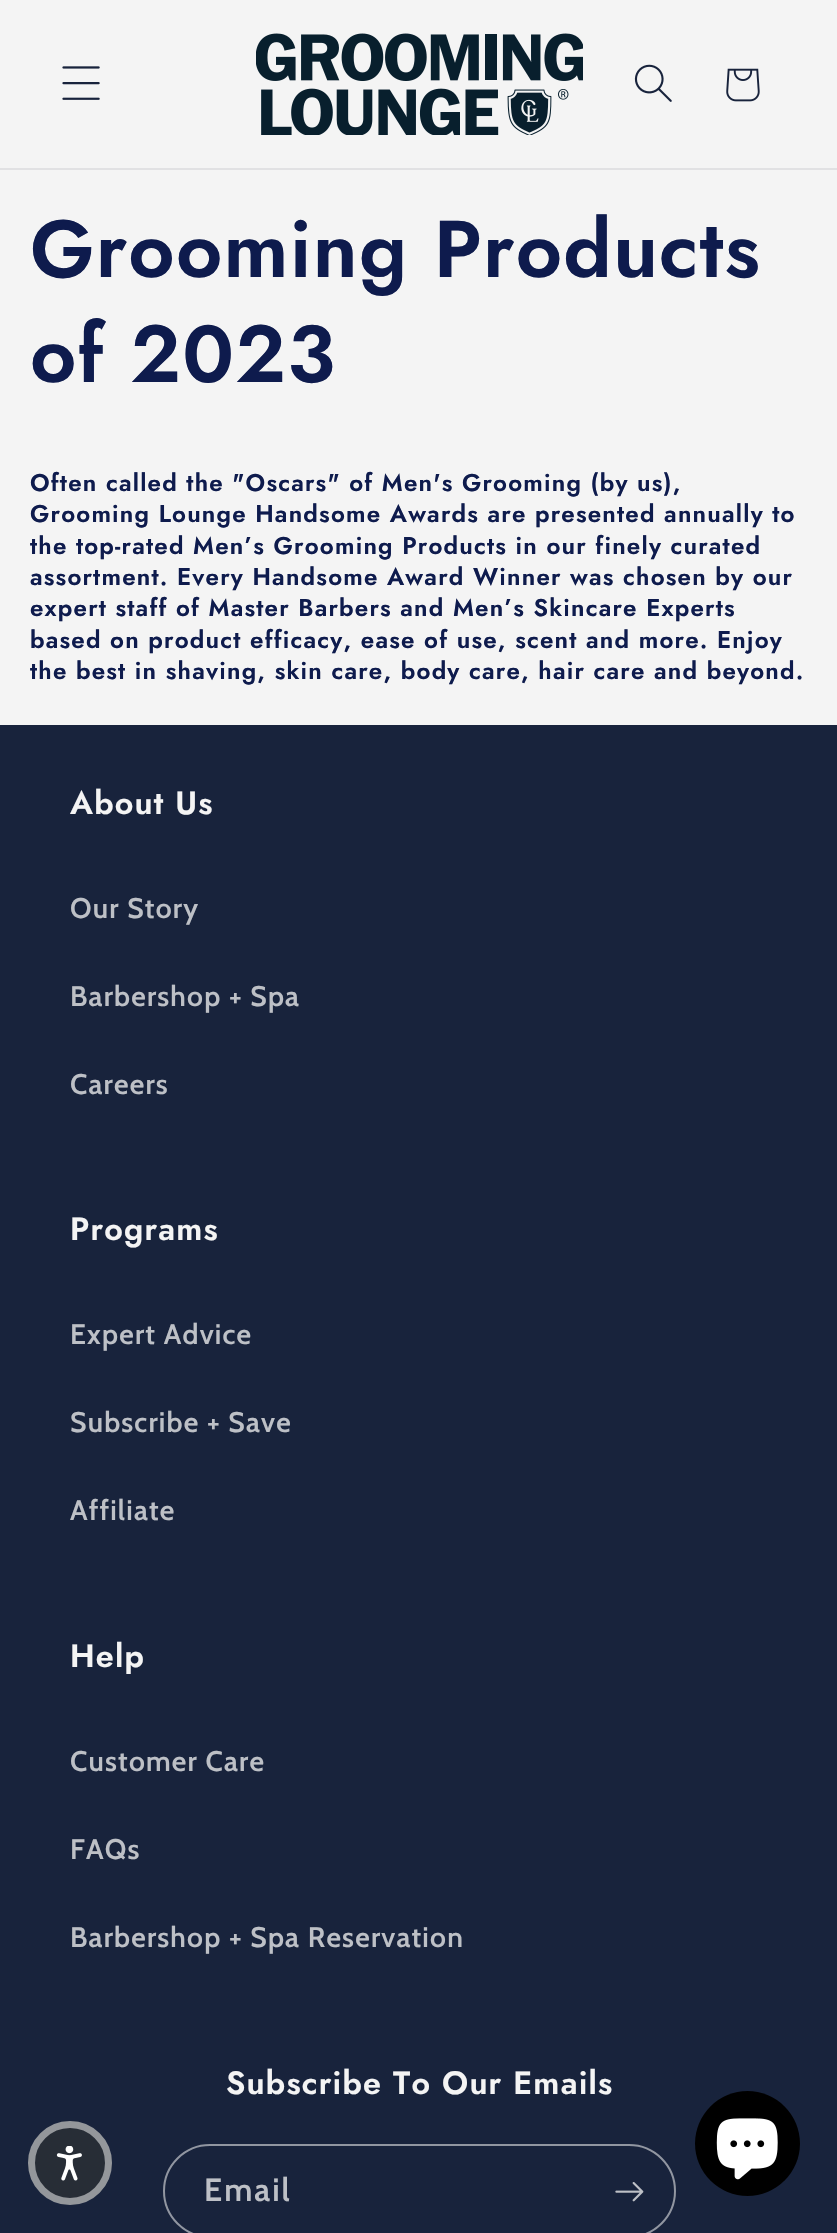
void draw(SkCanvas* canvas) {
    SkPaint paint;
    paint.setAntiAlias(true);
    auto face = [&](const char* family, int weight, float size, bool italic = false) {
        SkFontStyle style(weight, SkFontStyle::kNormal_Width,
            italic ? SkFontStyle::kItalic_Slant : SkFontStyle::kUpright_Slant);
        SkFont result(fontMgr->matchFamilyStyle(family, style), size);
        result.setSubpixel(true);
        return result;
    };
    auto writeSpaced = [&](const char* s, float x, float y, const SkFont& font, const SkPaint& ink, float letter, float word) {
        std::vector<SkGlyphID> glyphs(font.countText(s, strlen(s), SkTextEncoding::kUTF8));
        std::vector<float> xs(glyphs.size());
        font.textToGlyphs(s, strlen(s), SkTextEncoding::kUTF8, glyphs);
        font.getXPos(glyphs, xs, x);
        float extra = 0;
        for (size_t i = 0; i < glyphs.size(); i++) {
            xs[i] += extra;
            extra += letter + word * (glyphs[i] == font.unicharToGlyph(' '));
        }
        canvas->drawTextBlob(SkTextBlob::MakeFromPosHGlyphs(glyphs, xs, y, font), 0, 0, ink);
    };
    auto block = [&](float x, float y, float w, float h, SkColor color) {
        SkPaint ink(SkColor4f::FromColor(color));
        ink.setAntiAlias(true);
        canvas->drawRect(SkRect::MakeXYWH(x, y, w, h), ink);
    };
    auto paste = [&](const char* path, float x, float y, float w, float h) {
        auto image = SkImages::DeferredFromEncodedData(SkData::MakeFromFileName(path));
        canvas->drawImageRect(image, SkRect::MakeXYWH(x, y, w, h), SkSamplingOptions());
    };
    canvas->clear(SkColorSetRGB(244, 244, 244));
    block(0, 168, 837, 2, SkColorSetRGB(225, 225, 227));
    paste("pic1.png", 62, 66, 38, 34);
    paste("pic2.png", 256, 33, 327, 102);
    paste("pic3.png", 634, 64, 38, 38);
    paste("pic4.png", 726, 68, 34, 34);
    auto kFont1 = face("Jost", 600, 80.5f);
    paint.setColor(SkColorSetRGB(14, 27, 77));
    writeSpaced("Grooming Products", 30, 277, kFont1, paint, 1.2f, 0);
    writeSpaced("of 2023", 30, 382, kFont1, paint, 1.2f, 0);
    auto kFont2 = face("Jost", 600, 24.15f);
    writeSpaced("Often called the \"Oscars\" of Men's Grooming (by us),", 30, 491, kFont2, paint, 1.2f, 0);
    writeSpaced("Grooming Lounge Handsome Awards are presented annually to", 30, 522, kFont2, paint, 1.2f, 0);
    writeSpaced("the top-rated Men’s Grooming Products in our finely curated", 30, 554, kFont2, paint, 1.2f, 0);
    writeSpaced("assortment. Every Handsome Award Winner was chosen by our", 30, 585, kFont2, paint, 1.2f, 0);
    writeSpaced("expert staff of Master Barbers and Men’s Skincare Experts", 30, 616, kFont2, paint, 1.2f, 0);
    writeSpaced("based on product efficacy, ease of use, scent and more. Enjoy", 30, 648, kFont2, paint, 1.2f, 0);
    writeSpaced("the best in shaving, skin care, body care, hair care and beyond.", 30, 679, kFont2, paint, 1.2f, 0);
    block(0, 725, 837, 1508, SkColorSetRGB(24, 35, 60));
    auto kFont3 = face("Jost", 600, 32.25f);
    paint.setColor(SkColorSetRGB(244, 244, 244));
    writeSpaced("About Us", 70, 814, kFont3, paint, 1.2f, 0);
    auto kFont4 = face("Cabin", 600, 28.25f);
    paint.setColor(SkColorSetRGB(189, 192, 198));
    writeSpaced("Our Story", 70, 918, kFont4, paint, 1.2f, 0);
    writeSpaced("Barbershop + Spa", 70, 1006, kFont4, paint, 1.2f, 0);
    writeSpaced("Careers", 70, 1094, kFont4, paint, 1.2f, 0);
    paint.setColor(SkColorSetRGB(244, 244, 244));
    writeSpaced("Programs", 70, 1240, kFont3, paint, 1.2f, 0);
    paint.setColor(SkColorSetRGB(189, 192, 198));
    writeSpaced("Expert Advice", 70, 1344, kFont4, paint, 1.2f, 0);
    writeSpaced("Subscribe + Save", 70, 1432, kFont4, paint, 1.2f, 0);
    writeSpaced("Affiliate", 70, 1520, kFont4, paint, 1.2f, 0);
    paint.setColor(SkColorSetRGB(244, 244, 244));
    writeSpaced("Help", 70, 1667, kFont3, paint, 1.2f, 0);
    paint.setColor(SkColorSetRGB(189, 192, 198));
    writeSpaced("Customer Care", 70, 1771, kFont4, paint, 1.2f, 0);
    writeSpaced("FAQs", 70, 1859, kFont4, paint, 1.2f, 0);
    writeSpaced("Barbershop + Spa Reservation", 70, 1947, kFont4, paint, 1.2f, 0);
    paint.setColor(SkColorSetRGB(244, 244, 244));
    writeSpaced("Subscribe To Our Emails", 226, 2094, kFont3, paint, 1.2f, 0);
    paint.setStyle(SkPaint::kStroke_Style);
    paint.setStrokeWidth(2);
    paint.setColor(SkColorSetRGB(145, 150, 161));
    canvas->drawRoundRect(SkRect::MakeXYWH(164, 2145, 511, 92), 46, 46, paint);
    auto kFont5 = face("Cabin", 600, 32.25f);
    paint.setStyle(SkPaint::kFill_Style);
    paint.setColor(SkColorSetRGB(189, 192, 198));
    writeSpaced("Email", 204, 2201, kFont5, paint, 2, 0);
    paste("pic5.png", 615, 2182, 29, 20);
    paint.setColor(SK_ColorBLACK);
    canvas->drawCircle(747.5f, 2143.5f, 52.5f, paint);
    paste("pic6.png", 716, 2118, 62, 62);
    paint.setColor(SkColorSetRGB(39, 45, 54));
    canvas->drawCircle(70, 2163, 42, paint);
    paint.setStyle(SkPaint::kStroke_Style);
    paint.setStrokeWidth(7);
    paint.setColor(SkColorSetARGB(128, 255, 255, 255));
    canvas->drawCircle(70, 2163, 38.5f, paint);
    paste("pic7.png", 56, 2146, 26, 35);
}
